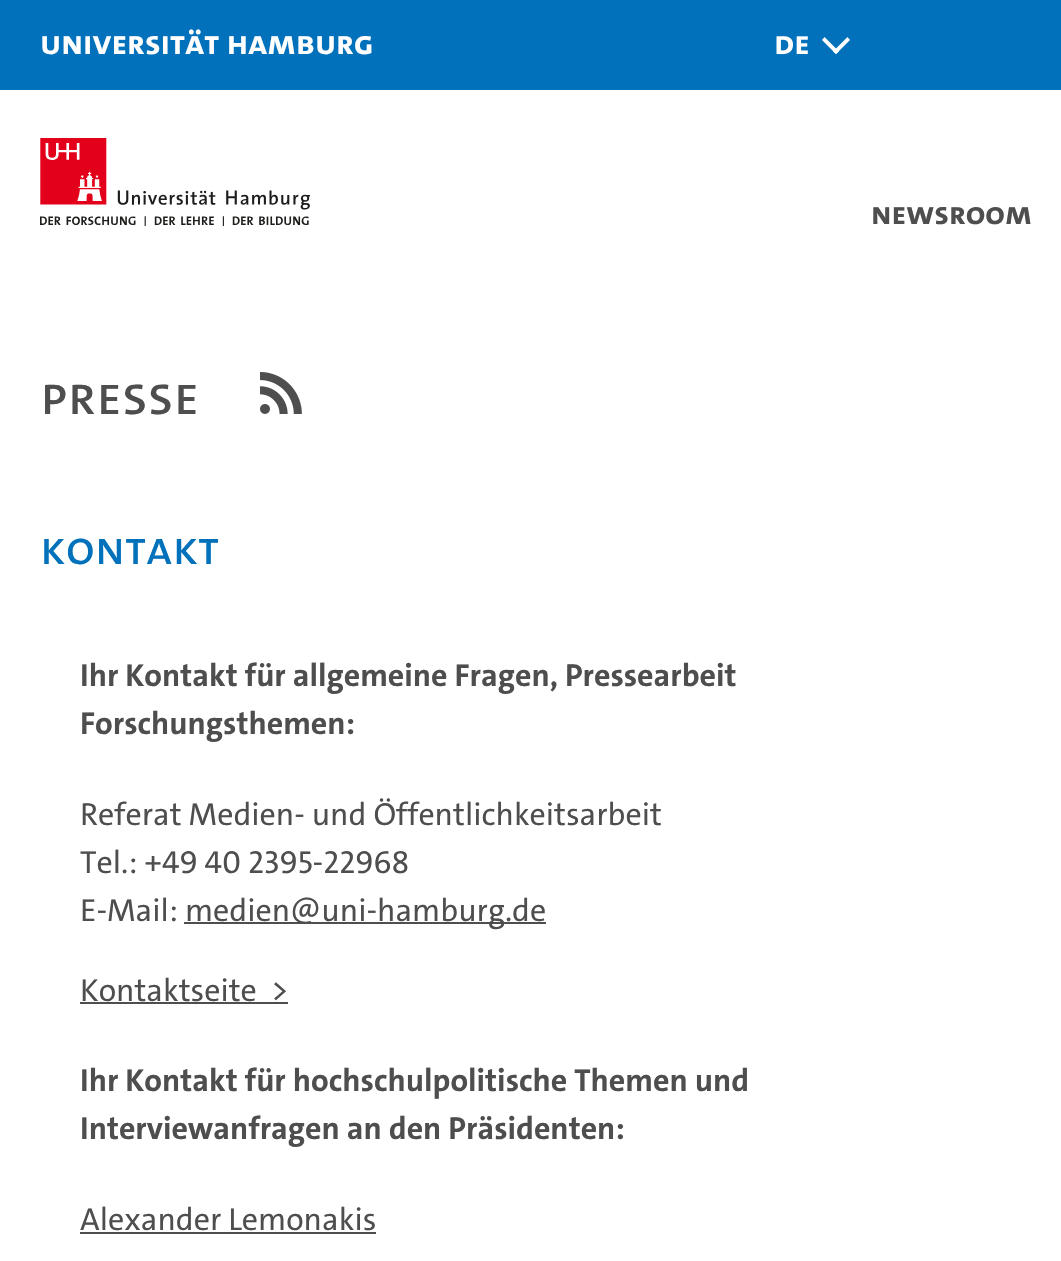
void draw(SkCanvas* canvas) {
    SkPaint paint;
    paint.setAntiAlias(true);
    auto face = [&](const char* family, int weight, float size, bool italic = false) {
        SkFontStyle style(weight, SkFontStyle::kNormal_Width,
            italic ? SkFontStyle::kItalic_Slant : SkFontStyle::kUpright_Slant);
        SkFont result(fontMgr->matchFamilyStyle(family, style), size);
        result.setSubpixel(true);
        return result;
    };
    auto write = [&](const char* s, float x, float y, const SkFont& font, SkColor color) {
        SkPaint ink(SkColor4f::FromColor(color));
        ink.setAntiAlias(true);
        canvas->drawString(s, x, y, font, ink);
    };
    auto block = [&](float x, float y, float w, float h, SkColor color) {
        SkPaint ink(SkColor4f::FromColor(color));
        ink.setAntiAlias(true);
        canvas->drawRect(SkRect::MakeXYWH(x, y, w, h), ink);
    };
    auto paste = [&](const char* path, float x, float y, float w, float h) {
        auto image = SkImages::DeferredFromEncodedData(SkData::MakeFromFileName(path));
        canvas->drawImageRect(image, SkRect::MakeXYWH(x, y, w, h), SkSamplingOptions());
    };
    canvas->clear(SK_ColorWHITE);
    block(0, 0, 1061, 90, SkColorSetRGB(2, 113, 187));
    auto kFont1 = face("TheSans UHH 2", 700, 34);
    write("Universität Hamburg", 40, 54, kFont1, SK_ColorWHITE);
    paste("pic1.png", 776, 36, 32, 19);
    paint.setColor(SK_ColorWHITE);
    canvas->drawPath(SkPathBuilder().moveTo(847.5f, 37).lineTo(850, 40).lineTo(836, 54).lineTo(833, 51.5f).close().detach(), paint);
    canvas->drawPath(SkPathBuilder().moveTo(824.5f, 37).lineTo(839, 51.5f).lineTo(836, 54).lineTo(822, 40).close().detach(), paint);
    paste("pic2.png", 40, 138, 270, 88);
    auto kFont2 = face("TheSans UHH 2", 700, 32);
    write("Newsroom", 871, 224, kFont2, SkColorSetRGB(78, 78, 78));
    auto kFont3 = face("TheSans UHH", 400, 56);
    write("Presse", 40, 414, kFont3, SkColorSetRGB(78, 78, 78));
    paste("pic3.png", 260, 372, 42, 42);
    auto kFont4 = face("TheSans UHH", 400, 48);
    write("Kontakt", 40, 564, kFont4, SkColorSetRGB(2, 113, 187));
    auto kFont5 = face("TheSans UHH", 700, 32);
    write("Ihr Kontakt für allgemeine Fragen, Pressearbeit", 80, 686, kFont5, SkColorSetRGB(78, 78, 78));
    write("Forschungsthemen:", 80, 734, kFont5, SkColorSetRGB(78, 78, 78));
    auto kFont6 = face("TheSans UHH 2", 400, 32);
    write("Referat Medien- und Öffentlichkeitsarbeit", 80, 825, kFont6, SkColorSetRGB(78, 78, 78));
    write("Tel.: +49 40 2395-22968", 80, 873, kFont6, SkColorSetRGB(78, 78, 78));
    write("E-Mail: medien", 80, 921, kFont6, SkColorSetRGB(78, 78, 78));
    block(184, 922, 362, 2, SkColorSetRGB(78, 78, 78));
    write("@uni-hamburg.de", 290, 921, kFont6, SkColorSetRGB(78, 78, 78));
    write("Kontaktseite  >", 80, 1001, kFont6, SkColorSetRGB(78, 78, 78));
    block(80, 1002, 208, 2, SkColorSetRGB(78, 78, 78));
    write("Ihr Kontakt für hochschulpolitische Themen und", 80, 1091, kFont5, SkColorSetRGB(78, 78, 78));
    write("Interviewanfragen an den Präsidenten:", 80, 1139, kFont5, SkColorSetRGB(78, 78, 78));
    write("Alexander Lemonakis", 80, 1230, kFont6, SkColorSetRGB(78, 78, 78));
    block(80, 1232, 296, 2, SkColorSetRGB(78, 78, 78));
}
